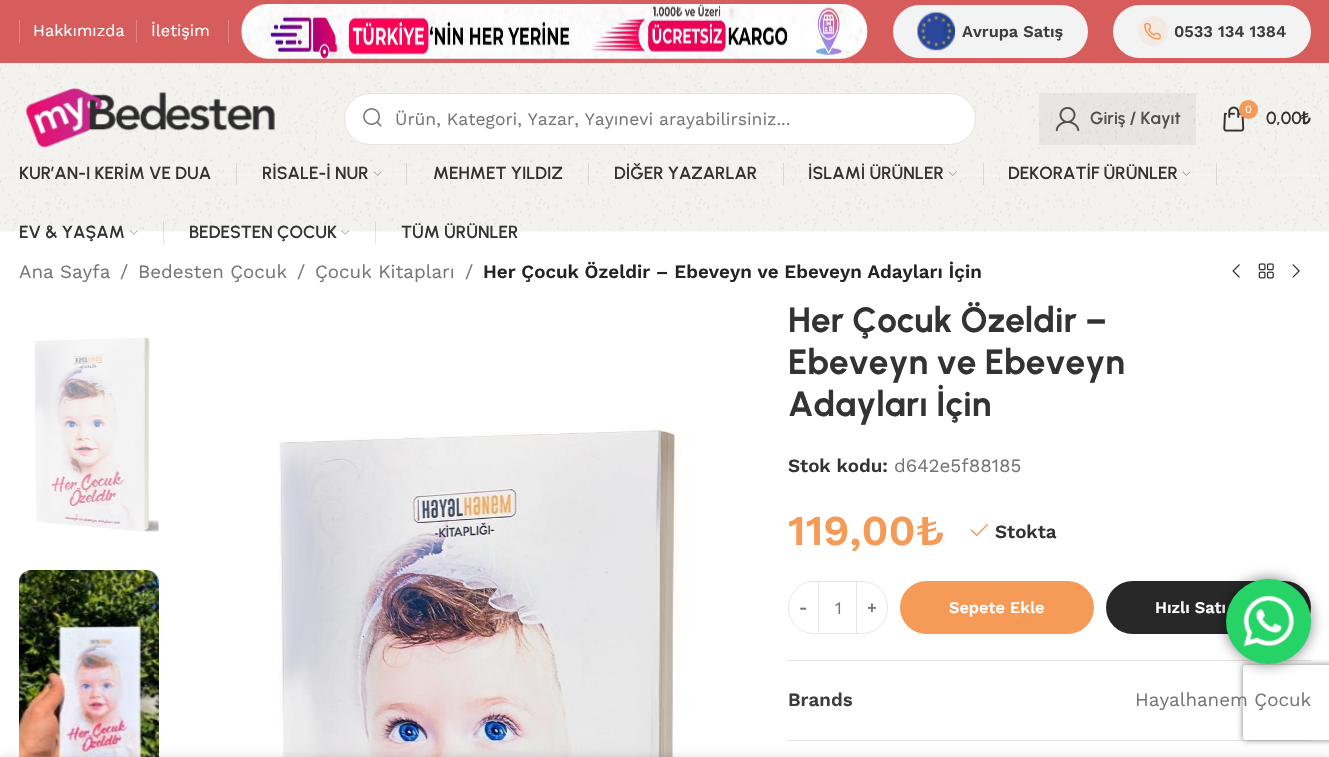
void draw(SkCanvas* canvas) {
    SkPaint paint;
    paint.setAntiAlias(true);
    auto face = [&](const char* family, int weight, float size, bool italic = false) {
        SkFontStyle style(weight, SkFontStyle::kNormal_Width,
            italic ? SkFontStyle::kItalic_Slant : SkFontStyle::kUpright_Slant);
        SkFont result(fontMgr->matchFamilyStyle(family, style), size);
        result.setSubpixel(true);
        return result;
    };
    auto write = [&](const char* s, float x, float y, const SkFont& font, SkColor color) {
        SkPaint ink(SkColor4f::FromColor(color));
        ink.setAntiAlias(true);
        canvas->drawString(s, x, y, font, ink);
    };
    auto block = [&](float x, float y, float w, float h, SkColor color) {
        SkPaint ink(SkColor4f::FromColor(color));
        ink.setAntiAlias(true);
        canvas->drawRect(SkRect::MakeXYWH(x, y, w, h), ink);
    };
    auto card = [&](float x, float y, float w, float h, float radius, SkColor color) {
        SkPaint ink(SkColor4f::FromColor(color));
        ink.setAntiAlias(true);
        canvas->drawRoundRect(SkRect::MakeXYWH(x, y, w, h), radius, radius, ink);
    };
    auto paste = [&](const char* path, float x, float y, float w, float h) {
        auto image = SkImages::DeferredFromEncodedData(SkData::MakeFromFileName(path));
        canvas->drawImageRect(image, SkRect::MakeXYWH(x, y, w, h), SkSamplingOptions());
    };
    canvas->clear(SK_ColorWHITE);
    block(0, 0, 1329, 63, SkColorSetRGB(215, 93, 93));
    block(19, 20, 1, 23, SkColorSetRGB(225, 134, 134));
    auto kFont1 = face("Work Sans", 400, 16.25f);
    write("Hakkımızda", 33, 36, kFont1, SK_ColorWHITE);
    block(136, 20, 1, 23, SkColorSetRGB(225, 134, 134));
    write("İletişim", 151, 36, kFont1, SK_ColorWHITE);
    block(228, 20, 1, 23, SkColorSetRGB(225, 134, 134));
    paste("pic1.png", 241, 4, 627, 55);
    card(893, 5, 195, 53, 26.5f, SkColorSetRGB(243, 243, 243));
    paste("pic2.png", 917, 11, 38, 40);
    auto kFont2 = face("Work Sans", 600, 16.25f);
    write("Avrupa Satış", 962, 37, kFont2, SkColorSetRGB(61, 61, 61));
    card(1113, 5, 198, 53, 26.5f, SkColorSetRGB(243, 243, 243));
    paste("pic3.png", 1138, 16, 30, 30);
    write("0533 134 1384", 1174, 37, kFont2, SkColorSetRGB(61, 61, 61));
    paste("pic4.png", 0, 63, 1329, 113);
    paste("pic5.png", 25, 88, 250, 60);
    card(344, 93, 632, 52, 26, SK_ColorWHITE);
    paint.setStyle(SkPaint::kStroke_Style);
    paint.setStrokeWidth(1);
    paint.setColor(SkColorSetARGB(26, 0, 0, 0));
    canvas->drawRoundRect(SkRect::MakeXYWH(344.5f, 93.5f, 631, 51), 25.5f, 25.5f, paint);
    paste("pic6.png", 363, 108, 19, 19);
    auto kFont3 = face("Work Sans", 400, 17.5f);
    write("Ürün, Kategori, Yazar, Yayınevi arayabilirsiniz...", 395, 125, kFont3, SkColorSetRGB(118, 118, 118));
    block(1039, 93, 157, 52, SkColorSetARGB(13, 16, 16, 16));
    paste("pic7.png", 1055, 107, 25, 25);
    auto kFont4 = face("Urbanist", 600, 17.5f);
    write("Giriş / Kayıt", 1090, 124, kFont4, SkColorSetRGB(81, 80, 79));
    paste("pic8.png", 1223, 106, 22, 26);
    paint.setStyle(SkPaint::kFill_Style);
    paint.setColor(SkColorSetRGB(245, 154, 87));
    canvas->drawCircle(1248.5f, 109.5f, 9.5f, paint);
    auto kFont5 = face("Work Sans", 400, 11);
    write("0", 1245, 113, kFont5, SK_ColorWHITE);
    write("0,00", 1266, 124, kFont4, SkColorSetRGB(51, 51, 51));
    auto kFont6 = face("Noto Sans", 600, 17.5f);
    write("₺", 1301, 124, kFont6, SkColorSetRGB(51, 51, 51));
    paste("pic9.png", 0, 175, 1329, 57);
    write("KUR’AN-I KERİM VE DUA", 19, 179, kFont4, SkColorSetRGB(51, 51, 51));
    block(236, 163, 1, 22, SkColorSetARGB(28, 0, 0, 0));
    write("RİSALE-İ NUR", 262, 179, kFont4, SkColorSetRGB(51, 51, 51));
    paste("pic10.png", 373, 171, 9, 5);
    block(406, 163, 1, 22, SkColorSetARGB(28, 0, 0, 0));
    write("MEHMET YILDIZ", 433, 179, kFont4, SkColorSetRGB(51, 51, 51));
    block(588, 163, 1, 22, SkColorSetARGB(28, 0, 0, 0));
    write("DİĞER YAZARLAR", 614, 179, kFont4, SkColorSetRGB(51, 51, 51));
    block(783, 163, 1, 22, SkColorSetARGB(28, 0, 0, 0));
    write("İSLAMİ ÜRÜNLER", 808, 179, kFont4, SkColorSetRGB(51, 51, 51));
    paste("pic11.png", 948, 171, 9, 5);
    block(983, 163, 1, 22, SkColorSetARGB(28, 0, 0, 0));
    write("DEKORATİF ÜRÜNLER", 1008, 179, kFont4, SkColorSetRGB(51, 51, 51));
    paste("pic12.png", 1182, 171, 9, 5);
    block(1216, 163, 1, 22, SkColorSetARGB(28, 0, 0, 0));
    write("EV & YAŞAM", 19, 238, kFont4, SkColorSetRGB(51, 51, 51));
    paste("pic13.png", 130, 230, 8, 5);
    block(163, 221, 1, 23, SkColorSetARGB(28, 0, 0, 0));
    write("BEDESTEN ÇOCUK", 189, 238, kFont4, SkColorSetRGB(51, 51, 51));
    paste("pic14.png", 341, 230, 8, 5);
    block(375, 221, 1, 23, SkColorSetARGB(28, 0, 0, 0));
    write("TÜM ÜRÜNLER", 401, 238, kFont4, SkColorSetRGB(51, 51, 51));
    auto kFont7 = face("Work Sans", 400, 18.75f);
    write("Ana Sayfa", 19, 278, kFont7, SkColorSetRGB(118, 118, 118));
    write("/", 120, 278, kFont7, SkColorSetRGB(118, 118, 118));
    write("Bedesten Çocuk", 138, 278, kFont7, SkColorSetRGB(118, 118, 118));
    write("/", 297, 278, kFont7, SkColorSetRGB(118, 118, 118));
    write("Çocuk Kitapları", 315, 278, kFont7, SkColorSetRGB(118, 118, 118));
    write("/", 465, 278, kFont7, SkColorSetRGB(118, 118, 118));
    auto kFont8 = face("Work Sans", 600, 18.75f);
    write("Her Çocuk Özeldir – Ebeveyn ve Ebeveyn Adayları İçin", 483, 278, kFont8, SkColorSetRGB(36, 36, 36));
    paste("pic15.png", 1232, 264, 8, 14);
    paste("pic16.png", 1258, 263, 16, 16);
    paste("pic17.png", 1292, 264, 8, 14);
    paste("pic18.png", 34, 337, 125, 195);
    paste("pic19.png", 19, 570, 140, 187);
    paste("pic20.png", 277, 427, 405, 330);
    auto kFont9 = face("Urbanist", 700, 35);
    write("Her Çocuk Özeldir –", 788, 332, kFont9, SkColorSetRGB(51, 51, 51));
    write("Ebeveyn ve Ebeveyn", 788, 374, kFont9, SkColorSetRGB(51, 51, 51));
    write("Adayları İçin", 788, 416, kFont9, SkColorSetRGB(51, 51, 51));
    write("Stok kodu:", 788, 472, kFont8, SkColorSetRGB(51, 51, 51));
    write("d642e5f88185", 894, 472, kFont7, SkColorSetRGB(118, 118, 118));
    auto kFont10 = face("Work Sans", 600, 42.5f);
    write("119,00₺", 788, 545, kFont10, SkColorSetRGB(245, 154, 87));
    paste("pic21.png", 970, 524, 18, 12);
    write("Stokta", 995, 538, kFont8, SkColorSetRGB(51, 51, 51));
    paint.setStyle(SkPaint::kStroke_Style);
    paint.setColor(SkColorSetRGB(230, 230, 230));
    canvas->drawPath(SkPathBuilder().moveTo(814, 581.5f).lineTo(818.5f, 581.5f).lineTo(818.5f, 633.5f).lineTo(814, 633.5f).cubicTo(800, 633.5f, 788.5f, 622, 788.5f, 608).lineTo(788.5f, 607).cubicTo(788.5f, 593, 800, 581.5f, 814, 581.5f).close().detach(), paint);
    write("-", 799, 613, kFont2, SkColorSetRGB(118, 118, 118));
    block(819, 581, 37, 1, SkColorSetRGB(230, 230, 230));
    block(819, 633, 37, 1, SkColorSetRGB(230, 230, 230));
    write("1", 835, 614, kFont3, SkColorSetRGB(118, 118, 118));
    canvas->drawPath(SkPathBuilder().moveTo(856.5f, 581.5f).lineTo(862, 581.5f).cubicTo(876, 581.5f, 887.5f, 593, 887.5f, 607).lineTo(887.5f, 608).cubicTo(887.5f, 622, 876, 633.5f, 862, 633.5f).lineTo(856.5f, 633.5f).close().detach(), paint);
    write("+", 867, 613, kFont2, SkColorSetRGB(118, 118, 118));
    card(900, 581, 194, 53, 26.5f, SkColorSetRGB(245, 154, 87));
    write("Sepete Ekle", 949, 613, kFont2, SK_ColorWHITE);
    card(1106, 581, 205, 53, 26.5f, SkColorSetRGB(40, 40, 40));
    write("Hızlı Satı", 1155, 613, kFont2, SK_ColorWHITE);
    block(788, 660, 523, 1, SkColorSetRGB(227, 227, 227));
    write("Brands", 788, 706, kFont8, SkColorSetRGB(61, 61, 61));
    write("Hayalhanem Çocuk", 1135, 706, kFont7, SkColorSetRGB(118, 118, 118));
    block(788, 740, 523, 1, SkColorSetRGB(227, 227, 227));
    paint.setStyle(SkPaint::kFill_Style);
    paint.setColor(SkColorSetARGB(128, 0, 0, 0));
    paint.setMaskFilter(SkMaskFilter::MakeBlur(kNormal_SkBlurStyle, 7));
    canvas->drawRoundRect(SkRect::MakeXYWH(1226, 579, 85, 85), 42.5f, 42.5f, paint);
    paint.setMaskFilter(nullptr);
    canvas->save();
    canvas->clipPath(SkPathBuilder(SkPathFillType::kEvenOdd).moveTo(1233, 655).lineTo(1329, 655).lineTo(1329, 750).lineTo(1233, 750).close().moveTo(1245.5f, 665).lineTo(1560.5f, 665).cubicTo(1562, 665, 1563, 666, 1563, 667.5f).lineTo(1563, 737.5f).cubicTo(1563, 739, 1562, 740, 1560.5f, 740).lineTo(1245.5f, 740).cubicTo(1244, 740, 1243, 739, 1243, 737.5f).lineTo(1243, 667.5f).cubicTo(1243, 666, 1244, 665, 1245.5f, 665).close().detach(), true);
    paint.setColor(SkColorSetRGB(128, 128, 128));
    paint.setMaskFilter(SkMaskFilter::MakeBlur(kNormal_SkBlurStyle, 3));
    canvas->drawRoundRect(SkRect::MakeXYWH(1243, 665, 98, 75), 2.5f, 2.5f, paint);
    paint.setMaskFilter(nullptr);
    canvas->restore();
    paint.setColor(SkColorSetRGB(37, 211, 102));
    canvas->drawCircle(1268.5f, 621.5f, 42.5f, paint);
    paste("pic22.png", 1243, 596, 51, 51);
    paint.setColor(SkColorSetARGB(36, 0, 0, 0));
    paint.setMaskFilter(SkMaskFilter::MakeBlur(kNormal_SkBlurStyle, 5.5f));
    canvas->drawRect(SkRect::MakeXYWH(0, 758, 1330, 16), paint);
    paint.setMaskFilter(nullptr);
}
